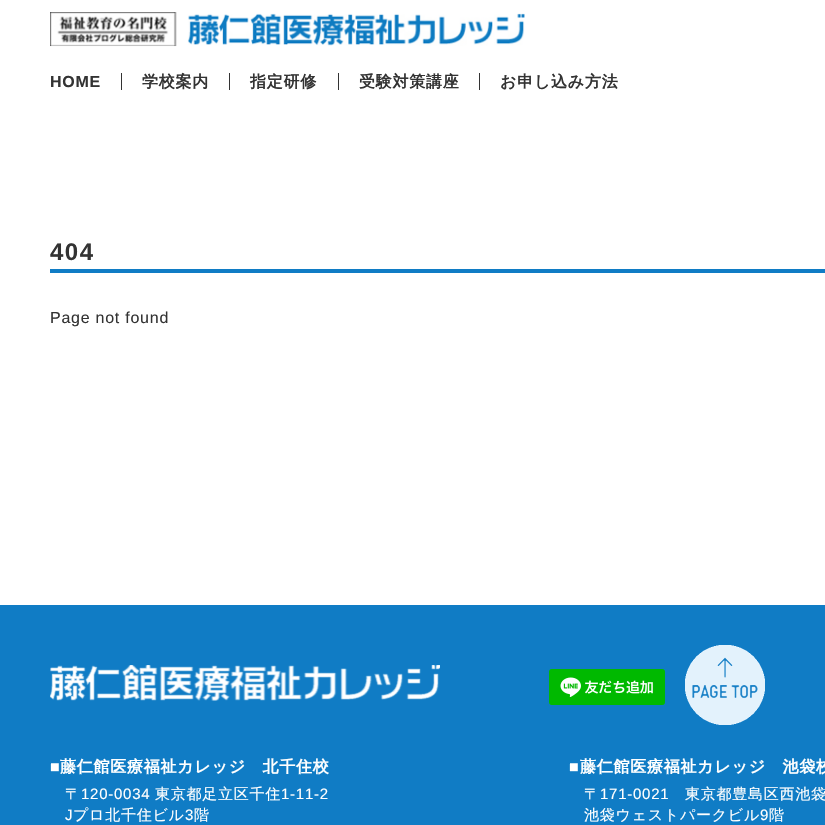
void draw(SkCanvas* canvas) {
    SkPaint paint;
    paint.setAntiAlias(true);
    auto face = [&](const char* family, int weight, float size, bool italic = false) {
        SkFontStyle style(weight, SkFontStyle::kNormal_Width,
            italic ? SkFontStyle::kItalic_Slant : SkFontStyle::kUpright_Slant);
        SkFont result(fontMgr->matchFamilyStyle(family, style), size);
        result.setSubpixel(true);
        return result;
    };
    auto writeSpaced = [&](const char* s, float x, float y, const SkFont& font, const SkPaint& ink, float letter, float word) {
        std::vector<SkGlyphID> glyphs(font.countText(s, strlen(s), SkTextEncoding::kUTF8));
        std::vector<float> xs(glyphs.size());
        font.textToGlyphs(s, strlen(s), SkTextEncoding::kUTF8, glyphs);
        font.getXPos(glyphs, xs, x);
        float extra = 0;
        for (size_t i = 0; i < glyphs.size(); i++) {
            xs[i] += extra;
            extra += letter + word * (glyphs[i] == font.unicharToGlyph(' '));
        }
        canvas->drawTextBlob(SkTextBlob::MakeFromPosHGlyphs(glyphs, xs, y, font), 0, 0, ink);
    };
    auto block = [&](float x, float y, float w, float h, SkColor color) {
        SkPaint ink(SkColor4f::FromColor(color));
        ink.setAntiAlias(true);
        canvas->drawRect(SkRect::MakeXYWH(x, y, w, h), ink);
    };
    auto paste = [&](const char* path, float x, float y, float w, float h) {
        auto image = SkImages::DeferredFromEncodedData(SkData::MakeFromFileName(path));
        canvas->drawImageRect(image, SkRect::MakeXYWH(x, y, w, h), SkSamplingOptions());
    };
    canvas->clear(SK_ColorWHITE);
    paste("pic1.png", 50, 12, 475, 35);
    auto kFont1 = face("Liberation Sans", 700, 16);
    paint.setColor(SkColorSetRGB(51, 51, 51));
    writeSpaced("HOME", 50, 87, kFont1, paint, 0.75f, 0);
    auto kFont2 = face("WenQuanYi Zen Hei", 700, 16);
    writeSpaced("学校案内", 142, 87, kFont2, paint, 0.75f, 0);
    block(121, 73, 1, 17, SkColorSetRGB(51, 51, 51));
    writeSpaced("指定研修", 250, 87, kFont2, paint, 0.75f, 0);
    block(229, 73, 1, 17, SkColorSetRGB(51, 51, 51));
    writeSpaced("受験対策講座", 359, 87, kFont2, paint, 0.75f, 0);
    block(338, 73, 1, 17, SkColorSetRGB(51, 51, 51));
    writeSpaced("お申し込み方法", 500, 87, kFont2, paint, 0.75f, 0);
    block(479, 73, 1, 17, SkColorSetRGB(51, 51, 51));
    block(50, 269, 775, 4, SkColorSetRGB(16, 124, 197));
    auto kFont3 = face("Liberation Sans", 700, 24);
    writeSpaced("404", 50, 260, kFont3, paint, 1.5f, 0);
    auto kFont4 = face("Liberation Sans", 400, 16);
    writeSpaced("Page not found", 50, 323, kFont4, paint, 0.75f, 0);
    block(0, 605, 825, 220, SkColorSetRGB(16, 124, 197));
    paste("pic2.png", 50, 665, 390, 36);
    paste("pic3.png", 549, 669, 116, 36);
    paste("pic4.png", 685, 645, 80, 80);
    paint.setColor(SK_ColorWHITE);
    writeSpaced("■", 50, 772, kFont1, paint, 0.75f, 0);
    writeSpaced("藤仁館医療福祉カレッジ　北千住校", 60, 772, kFont2, paint, 0.75f, 0);
    auto kFont5 = face("WenQuanYi Zen Hei", 500, 15);
    writeSpaced("〒", 65, 799, kFont5, paint, 0.75f, 0);
    auto kFont6 = face("Liberation Sans", 400, 15);
    writeSpaced("120-0034", 81, 799, kFont6, paint, 0.75f, 0);
    writeSpaced("東京都足立区千住", 155, 799, kFont5, paint, 0.75f, 0);
    writeSpaced("1-11-2", 281, 799, kFont6, paint, 0.75f, 0);
    writeSpaced("J", 65, 820, kFont6, paint, 0.75f, 0);
    writeSpaced("プロ北千住ビル", 73, 820, kFont5, paint, 0.75f, 0);
    writeSpaced("3", 185, 820, kFont6, paint, 0.75f, 0);
    writeSpaced("階", 194, 820, kFont5, paint, 0.75f, 0);
    writeSpaced("■", 569, 772, kFont1, paint, 0.75f, 0);
    writeSpaced("藤仁館医療福祉カレッジ　池袋校", 580, 772, kFont2, paint, 0.75f, 0);
    writeSpaced("〒", 584, 799, kFont5, paint, 0.75f, 0);
    writeSpaced("171-0021", 600, 799, kFont6, paint, 0.75f, 0);
    writeSpaced("東京都豊島区西池袋", 685, 799, kFont5, paint, 0.75f, 0);
    writeSpaced("池袋ウェストパークビル", 584, 820, kFont5, paint, 0.75f, 0);
    writeSpaced("9", 760, 820, kFont6, paint, 0.75f, 0);
    writeSpaced("階", 769, 820, kFont5, paint, 0.75f, 0);
}
